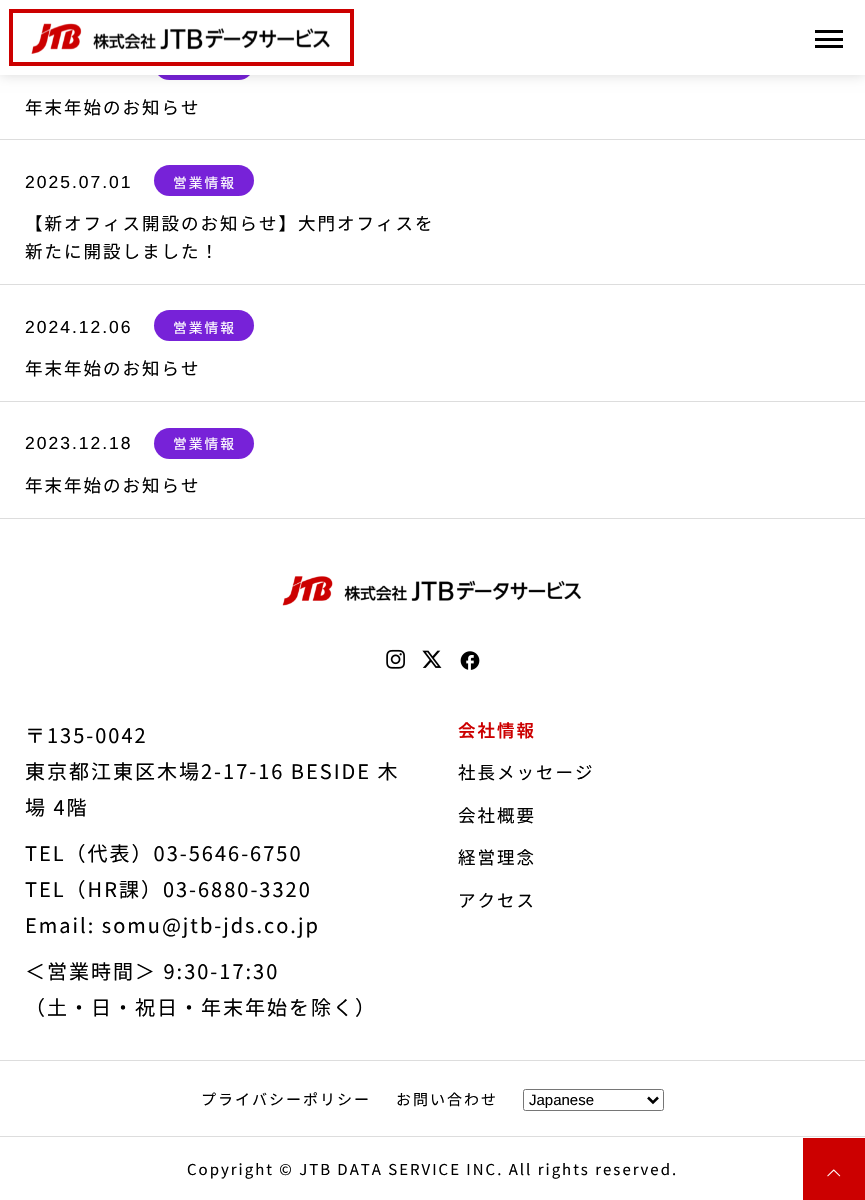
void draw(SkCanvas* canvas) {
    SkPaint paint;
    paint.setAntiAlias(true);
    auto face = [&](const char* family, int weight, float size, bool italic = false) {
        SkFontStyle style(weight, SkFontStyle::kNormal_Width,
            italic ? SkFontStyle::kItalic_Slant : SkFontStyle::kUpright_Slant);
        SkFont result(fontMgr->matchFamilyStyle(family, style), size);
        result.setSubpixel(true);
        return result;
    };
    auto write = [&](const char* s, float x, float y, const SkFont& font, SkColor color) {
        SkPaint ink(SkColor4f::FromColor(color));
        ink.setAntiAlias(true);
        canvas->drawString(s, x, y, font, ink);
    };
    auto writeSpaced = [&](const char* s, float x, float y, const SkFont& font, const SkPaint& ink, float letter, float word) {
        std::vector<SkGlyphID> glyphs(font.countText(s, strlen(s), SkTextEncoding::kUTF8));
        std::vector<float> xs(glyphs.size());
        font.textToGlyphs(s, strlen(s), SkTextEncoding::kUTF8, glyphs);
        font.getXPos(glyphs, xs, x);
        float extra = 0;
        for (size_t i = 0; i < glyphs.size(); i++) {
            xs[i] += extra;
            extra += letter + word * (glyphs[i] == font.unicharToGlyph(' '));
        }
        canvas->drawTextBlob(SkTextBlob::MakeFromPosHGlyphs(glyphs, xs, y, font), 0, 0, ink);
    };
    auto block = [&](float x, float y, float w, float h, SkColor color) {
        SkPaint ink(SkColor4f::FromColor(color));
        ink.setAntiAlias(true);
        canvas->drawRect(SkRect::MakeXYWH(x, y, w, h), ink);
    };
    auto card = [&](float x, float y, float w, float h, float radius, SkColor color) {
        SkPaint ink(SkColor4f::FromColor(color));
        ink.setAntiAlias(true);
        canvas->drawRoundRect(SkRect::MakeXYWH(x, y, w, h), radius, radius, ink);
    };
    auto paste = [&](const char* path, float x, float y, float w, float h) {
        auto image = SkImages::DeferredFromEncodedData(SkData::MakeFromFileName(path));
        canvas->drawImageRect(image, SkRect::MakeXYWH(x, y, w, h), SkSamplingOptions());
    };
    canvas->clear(SK_ColorWHITE);
    card(154, 49, 100, 31, 15.5f, SkColorSetRGB(119, 34, 216));
    paint.setColor(SkColorSetARGB(38, 0, 0, 0));
    paint.setMaskFilter(SkMaskFilter::MakeBlur(kNormal_SkBlurStyle, 6));
    canvas->drawRect(SkRect::MakeXYWH(0, 0, 865, 75), paint);
    paint.setMaskFilter(nullptr);
    block(0, 0, 865, 75, SK_ColorWHITE);
    paste("pic1.png", 31, 23, 299, 31);
    paint.setStyle(SkPaint::kStroke_Style);
    paint.setStrokeWidth(4);
    paint.setColor(SkColorSetRGB(204, 0, 0));
    canvas->drawRect(SkRect::MakeXYWH(11, 11, 341, 53), paint);
    block(815, 30, 28, 3, SK_ColorBLACK);
    block(815, 38, 28, 3, SK_ColorBLACK);
    block(815, 45, 28, 3, SK_ColorBLACK);
    block(0, 139, 865, 1, SkColorSetRGB(221, 221, 221));
    auto kFont1 = face("Noto Sans JP", 400, 17.5f);
    paint.setStyle(SkPaint::kFill_Style);
    paint.setColor(SK_ColorBLACK);
    writeSpaced("年末年始のお知らせ", 25, 114, kFont1, paint, 2, 0);
    block(0, 284, 865, 1, SkColorSetRGB(221, 221, 221));
    auto kFont2 = face("Liberation Sans", 400, 17.5f);
    writeSpaced("2025.07.01", 25, 188, kFont2, paint, 2, 0);
    card(154, 165, 100, 31, 15.5f, SkColorSetRGB(119, 34, 216));
    auto kFont3 = face("Noto Sans JP", 400, 13.75f);
    paint.setColor(SK_ColorWHITE);
    writeSpaced("営業情報", 173, 188, kFont3, paint, 2, 0);
    paint.setColor(SK_ColorBLACK);
    writeSpaced("【新オフィス開設のお知らせ】大門オフィスを", 25, 230, kFont1, paint, 2, 0);
    writeSpaced("新たに開設しました！", 25, 258, kFont1, paint, 2, 0);
    block(0, 401, 865, 1, SkColorSetRGB(221, 221, 221));
    writeSpaced("2024.12.06", 25, 333, kFont2, paint, 2, 0);
    card(154, 310, 100, 31, 15.5f, SkColorSetRGB(119, 34, 216));
    paint.setColor(SK_ColorWHITE);
    writeSpaced("営業情報", 173, 333, kFont3, paint, 2, 0);
    paint.setColor(SK_ColorBLACK);
    writeSpaced("年末年始のお知らせ", 25, 375, kFont1, paint, 2, 0);
    writeSpaced("2023.12.18", 25, 449, kFont2, paint, 2, 0);
    card(154, 428, 100, 31, 15.5f, SkColorSetRGB(119, 34, 216));
    paint.setColor(SK_ColorWHITE);
    writeSpaced("営業情報", 173, 449, kFont3, paint, 2, 0);
    paint.setColor(SK_ColorBLACK);
    writeSpaced("年末年始のお知らせ", 25, 492, kFont1, paint, 2, 0);
    block(0, 518, 865, 1, SkColorSetRGB(221, 221, 221));
    paste("pic2.png", 282, 576, 300, 30);
    paste("pic3.png", 386, 649, 19, 20);
    paste("pic4.png", 422, 650, 20, 18);
    paste("pic5.png", 460, 651, 20, 19);
    auto kFont4 = face("Noto Sans JP", 400, 20);
    writeSpaced("〒135-0042", 25, 743, kFont4, paint, 2, 0);
    writeSpaced("東京都江東区木場2-17-16 BESIDE 木", 25, 779, kFont4, paint, 2, 0);
    writeSpaced("場 4階", 25, 815, kFont4, paint, 2, 0);
    writeSpaced("TEL（代表）03-5646-6750", 25, 861, kFont4, paint, 2, 0);
    writeSpaced("TEL（HR課）03-6880-3320", 25, 897, kFont4, paint, 2, 0);
    writeSpaced("Email: somu@jtb-jds.co.jp", 25, 933, kFont4, paint, 2, 0);
    writeSpaced("＜営業時間＞ 9:30-17:30", 25, 979, kFont4, paint, 2, 0);
    writeSpaced("（土・日・祝日・年末年始を除く）", 25, 1015, kFont4, paint, 2, 0);
    auto kFont5 = face("Noto Sans JP", 600, 17.5f);
    paint.setColor(SkColorSetRGB(204, 0, 0));
    writeSpaced("会社情報", 458, 737, kFont5, paint, 2, 0);
    paint.setColor(SK_ColorBLACK);
    writeSpaced("社長メッセージ", 458, 779, kFont1, paint, 2, 0);
    writeSpaced("会社概要", 458, 822, kFont1, paint, 2, 0);
    writeSpaced("経営理念", 458, 864, kFont1, paint, 2, 0);
    writeSpaced("アクセス", 458, 907, kFont1, paint, 2, 0);
    block(0, 1060, 865, 1, SkColorSetRGB(221, 221, 221));
    auto kFont6 = face("Noto Sans JP", 400, 15);
    writeSpaced("プライバシーポリシー", 201, 1105, kFont6, paint, 2, 0);
    writeSpaced("お問い合わせ", 396, 1105, kFont6, paint, 2, 0);
    paint.setStyle(SkPaint::kStroke_Style);
    paint.setStrokeWidth(1);
    paint.setColor(SkColorSetRGB(118, 118, 118));
    canvas->drawRoundRect(SkRect::MakeXYWH(523.5f, 1089.5f, 140, 21), 2, 2, paint);
    paint.setStrokeWidth(2.5f);
    paint.setColor(SK_ColorBLACK);
    canvas->drawPath(SkPathBuilder().moveTo(648, 1097.5f).lineTo(653, 1102.5f).lineTo(658, 1097.5f).detach(), paint);
    auto kFont7 = face("Liberation Sans", 400, 15);
    write("Japanese", 529, 1105, kFont7, SK_ColorBLACK);
    block(0, 1136, 865, 1, SkColorSetRGB(221, 221, 221));
    paint.setStyle(SkPaint::kFill_Style);
    writeSpaced("Copyright © JTB DATA SERVICE INC. All rights reserved.", 187, 1175, kFont6, paint, 2, 0);
    block(803, 1138, 62, 62, SkColorSetRGB(204, 0, 0));
    paste("pic6.png", 827, 1169, 14, 8);
}
